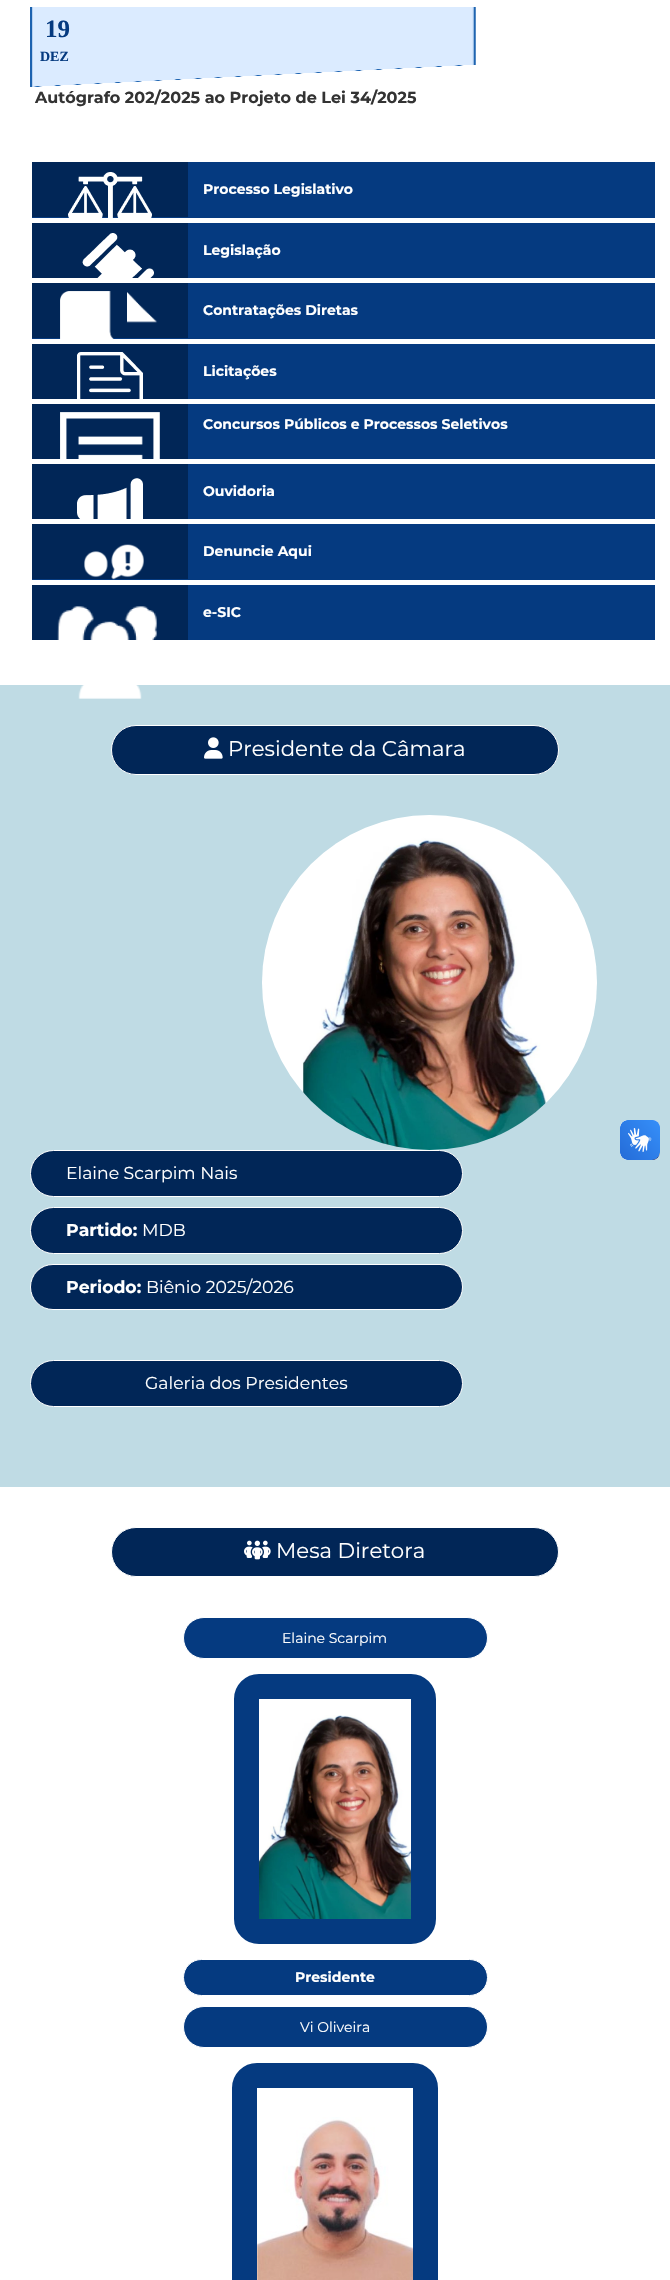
void draw(SkCanvas* canvas) {
    SkPaint paint;
    paint.setAntiAlias(true);
    auto face = [&](const char* family, int weight, float size, bool italic = false) {
        SkFontStyle style(weight, SkFontStyle::kNormal_Width,
            italic ? SkFontStyle::kItalic_Slant : SkFontStyle::kUpright_Slant);
        SkFont result(fontMgr->matchFamilyStyle(family, style), size);
        result.setSubpixel(true);
        return result;
    };
    auto write = [&](const char* s, float x, float y, const SkFont& font, SkColor color) {
        SkPaint ink(SkColor4f::FromColor(color));
        ink.setAntiAlias(true);
        canvas->drawString(s, x, y, font, ink);
    };
    auto block = [&](float x, float y, float w, float h, SkColor color) {
        SkPaint ink(SkColor4f::FromColor(color));
        ink.setAntiAlias(true);
        canvas->drawRect(SkRect::MakeXYWH(x, y, w, h), ink);
    };
    auto card = [&](float x, float y, float w, float h, float radius, SkColor color) {
        SkPaint ink(SkColor4f::FromColor(color));
        ink.setAntiAlias(true);
        canvas->drawRoundRect(SkRect::MakeXYWH(x, y, w, h), radius, radius, ink);
    };
    auto paste = [&](const char* path, float x, float y, float w, float h) {
        auto image = SkImages::DeferredFromEncodedData(SkData::MakeFromFileName(path));
        canvas->drawImageRect(image, SkRect::MakeXYWH(x, y, w, h), SkSamplingOptions());
    };
    canvas->clear(SK_ColorWHITE);
    paste("pic1.png", 30, 7, 446, 80);
    auto kFont1 = face("Liberation Serif", 700, 25);
    write("19", 45, 37, kFont1, SkColorSetRGB(5, 58, 128));
    auto kFont2 = face("Liberation Serif", 700, 14);
    write("DEZ", 40, 61, kFont2, SkColorSetRGB(5, 58, 128));
    auto kFont3 = face("Montserrat", 700, 16);
    write("Autógrafo 202/2025 ao Projeto de Lei 34/2025", 35, 103, kFont3, SkColorSetRGB(51, 51, 51));
    block(32, 162, 623, 56, SkColorSetRGB(5, 58, 128));
    block(32, 162, 156, 55, SkColorSetRGB(1, 38, 87));
    paste("pic2.png", 68, 172, 84, 51);
    auto kFont4 = face("Montserrat", 700, 14);
    write("Processo Legislativo", 203, 194, kFont4, SK_ColorWHITE);
    block(188, 223, 467, 55, SkColorSetRGB(5, 58, 128));
    block(32, 223, 156, 55, SkColorSetRGB(1, 38, 87));
    paste("pic3.png", 82, 233, 72, 50);
    write("Legislação", 203, 255, kFont4, SK_ColorWHITE);
    block(32, 283, 623, 56, SkColorSetRGB(5, 58, 128));
    block(32, 283, 156, 55, SkColorSetRGB(1, 38, 87));
    paste("pic4.png", 60, 291, 100, 113);
    write("Contratações Diretas", 203, 315, kFont4, SK_ColorWHITE);
    block(188, 344, 467, 55, SkColorSetRGB(5, 58, 128));
    block(32, 344, 156, 55, SkColorSetRGB(1, 38, 87));
    paste("pic5.png", 77, 352, 66, 52);
    write("Licitações", 203, 376, kFont4, SK_ColorWHITE);
    block(188, 404, 467, 55, SkColorSetRGB(5, 58, 128));
    block(32, 404, 156, 55, SkColorSetRGB(1, 38, 87));
    paste("pic6.png", 60, 412, 100, 112);
    write("Concursos Públicos e Processos Seletivos", 203, 429, kFont4, SK_ColorWHITE);
    block(188, 464, 467, 55, SkColorSetRGB(5, 58, 128));
    block(32, 464, 156, 55, SkColorSetRGB(1, 38, 87));
    paste("pic7.png", 77, 478, 66, 46);
    write("Ouvidoria", 203, 496, kFont4, SK_ColorWHITE);
    block(32, 524, 623, 56, SkColorSetRGB(5, 58, 128));
    block(32, 524, 156, 55, SkColorSetRGB(1, 38, 87));
    paste("pic8.png", 81, 544, 63, 41);
    write("Denuncie Aqui", 203, 556, kFont4, SK_ColorWHITE);
    block(188, 585, 467, 55, SkColorSetRGB(5, 58, 128));
    block(32, 585, 156, 55, SkColorSetRGB(1, 38, 87));
    block(0, 685, 670, 802, SkColorSetRGB(191, 219, 228));
    paste("pic9.png", 57, 606, 100, 93);
    write("e-SIC", 203, 617, kFont4, SK_ColorWHITE);
    paint.setColor(SkColorSetRGB(1, 38, 87));
    canvas->drawRoundRect(SkRect::MakeXYWH(111.5f, 725.5f, 447, 49), 24.5f, 24.5f, paint);
    paint.setStyle(SkPaint::kStroke_Style);
    paint.setStrokeWidth(1);
    paint.setColor(SK_ColorWHITE);
    canvas->drawRoundRect(SkRect::MakeXYWH(111.5f, 725.5f, 447, 49), 24.5f, 24.5f, paint);
    paste("pic10.png", 204, 737, 19, 22);
    auto kFont5 = face("Montserrat", 400, 21.25f);
    write("Presidente da Câmara", 228, 756, kFont5, SK_ColorWHITE);
    paste("pic11.png", 262, 815, 335, 335);
    paint.setStyle(SkPaint::kFill_Style);
    paint.setColor(SkColorSetRGB(1, 38, 87));
    canvas->drawRoundRect(SkRect::MakeXYWH(30.5f, 1150.5f, 432, 46), 23, 23, paint);
    paint.setStyle(SkPaint::kStroke_Style);
    paint.setColor(SK_ColorWHITE);
    canvas->drawRoundRect(SkRect::MakeXYWH(30.5f, 1150.5f, 432, 46), 23, 23, paint);
    auto kFont6 = face("Montserrat", 400, 17.25f);
    write("Elaine Scarpim Nais", 66, 1179, kFont6, SK_ColorWHITE);
    paint.setStyle(SkPaint::kFill_Style);
    paint.setColor(SkColorSetRGB(1, 38, 87));
    canvas->drawRoundRect(SkRect::MakeXYWH(30.5f, 1207.5f, 432, 46), 23, 23, paint);
    paint.setStyle(SkPaint::kStroke_Style);
    paint.setColor(SK_ColorWHITE);
    canvas->drawRoundRect(SkRect::MakeXYWH(30.5f, 1207.5f, 432, 46), 23, 23, paint);
    auto kFont7 = face("Montserrat", 700, 17.25f);
    write("Partido:", 66, 1236, kFont7, SK_ColorWHITE);
    write("MDB", 142, 1236, kFont6, SK_ColorWHITE);
    paint.setStyle(SkPaint::kFill_Style);
    paint.setColor(SkColorSetRGB(1, 38, 87));
    canvas->drawRoundRect(SkRect::MakeXYWH(30.5f, 1264.5f, 432, 45), 22.5f, 22.5f, paint);
    paint.setStyle(SkPaint::kStroke_Style);
    paint.setColor(SK_ColorWHITE);
    canvas->drawRoundRect(SkRect::MakeXYWH(30.5f, 1264.5f, 432, 45), 22.5f, 22.5f, paint);
    write("Periodo:", 66, 1293, kFont7, SK_ColorWHITE);
    write("Biênio 2025/2026", 146, 1293, kFont6, SK_ColorWHITE);
    paint.setStyle(SkPaint::kFill_Style);
    paint.setColor(SkColorSetRGB(1, 38, 87));
    canvas->drawRoundRect(SkRect::MakeXYWH(30.5f, 1360.5f, 432, 46), 23, 23, paint);
    paint.setStyle(SkPaint::kStroke_Style);
    paint.setColor(SK_ColorWHITE);
    canvas->drawRoundRect(SkRect::MakeXYWH(30.5f, 1360.5f, 432, 46), 23, 23, paint);
    write("Galeria dos Presidentes", 145, 1389, kFont6, SK_ColorWHITE);
    card(620, 1120, 40, 40, 8, SK_ColorWHITE);
    paste("pic12.png", 620, 1120, 40, 40);
    paste("pic13.png", 620, 1120, 40, 40);
    paint.setStyle(SkPaint::kFill_Style);
    paint.setColor(SkColorSetRGB(1, 38, 87));
    canvas->drawRoundRect(SkRect::MakeXYWH(111.5f, 1527.5f, 447, 49), 24.5f, 24.5f, paint);
    paint.setStyle(SkPaint::kStroke_Style);
    paint.setColor(SK_ColorWHITE);
    canvas->drawRoundRect(SkRect::MakeXYWH(111.5f, 1527.5f, 447, 49), 24.5f, 24.5f, paint);
    paste("pic14.png", 244, 1540, 27, 20);
    write("Mesa Diretora", 276, 1558, kFont5, SK_ColorWHITE);
    paint.setStyle(SkPaint::kFill_Style);
    paint.setColor(SkColorSetRGB(5, 58, 128));
    canvas->drawRoundRect(SkRect::MakeXYWH(183.5f, 1617.5f, 304, 41), 20.5f, 20.5f, paint);
    paint.setStyle(SkPaint::kStroke_Style);
    paint.setColor(SK_ColorWHITE);
    canvas->drawRoundRect(SkRect::MakeXYWH(183.5f, 1617.5f, 304, 41), 20.5f, 20.5f, paint);
    auto kFont8 = face("Montserrat", 400, 14);
    write("Elaine Scarpim", 282, 1643, kFont8, SK_ColorWHITE);
    paint.setStrokeWidth(25);
    paint.setColor(SkColorSetRGB(5, 58, 128));
    canvas->drawRoundRect(SkRect::MakeXYWH(246.5f, 1686.5f, 177, 245), 12.5f, 12.5f, paint);
    paste("pic15.png", 259, 1715, 152, 204);
    paint.setStyle(SkPaint::kFill_Style);
    canvas->drawRoundRect(SkRect::MakeXYWH(183.5f, 1959.5f, 304, 36), 18, 18, paint);
    paint.setStyle(SkPaint::kStroke_Style);
    paint.setStrokeWidth(1);
    paint.setColor(SK_ColorWHITE);
    canvas->drawRoundRect(SkRect::MakeXYWH(183.5f, 1959.5f, 304, 36), 18, 18, paint);
    write("Presidente", 295, 1982, kFont4, SK_ColorWHITE);
    paint.setStyle(SkPaint::kFill_Style);
    paint.setColor(SkColorSetRGB(5, 58, 128));
    canvas->drawRoundRect(SkRect::MakeXYWH(183.5f, 2006.5f, 304, 41), 20.5f, 20.5f, paint);
    paint.setStyle(SkPaint::kStroke_Style);
    paint.setColor(SK_ColorWHITE);
    canvas->drawRoundRect(SkRect::MakeXYWH(183.5f, 2006.5f, 304, 41), 20.5f, 20.5f, paint);
    write("Vi Oliveira", 300, 2032, kFont8, SK_ColorWHITE);
    paint.setStrokeWidth(25);
    paint.setColor(SkColorSetRGB(5, 58, 128));
    canvas->drawRoundRect(SkRect::MakeXYWH(244.5f, 2075.5f, 181, 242), 12.5f, 12.5f, paint);
    paste("pic16.png", 257, 2117, 156, 163);
}
